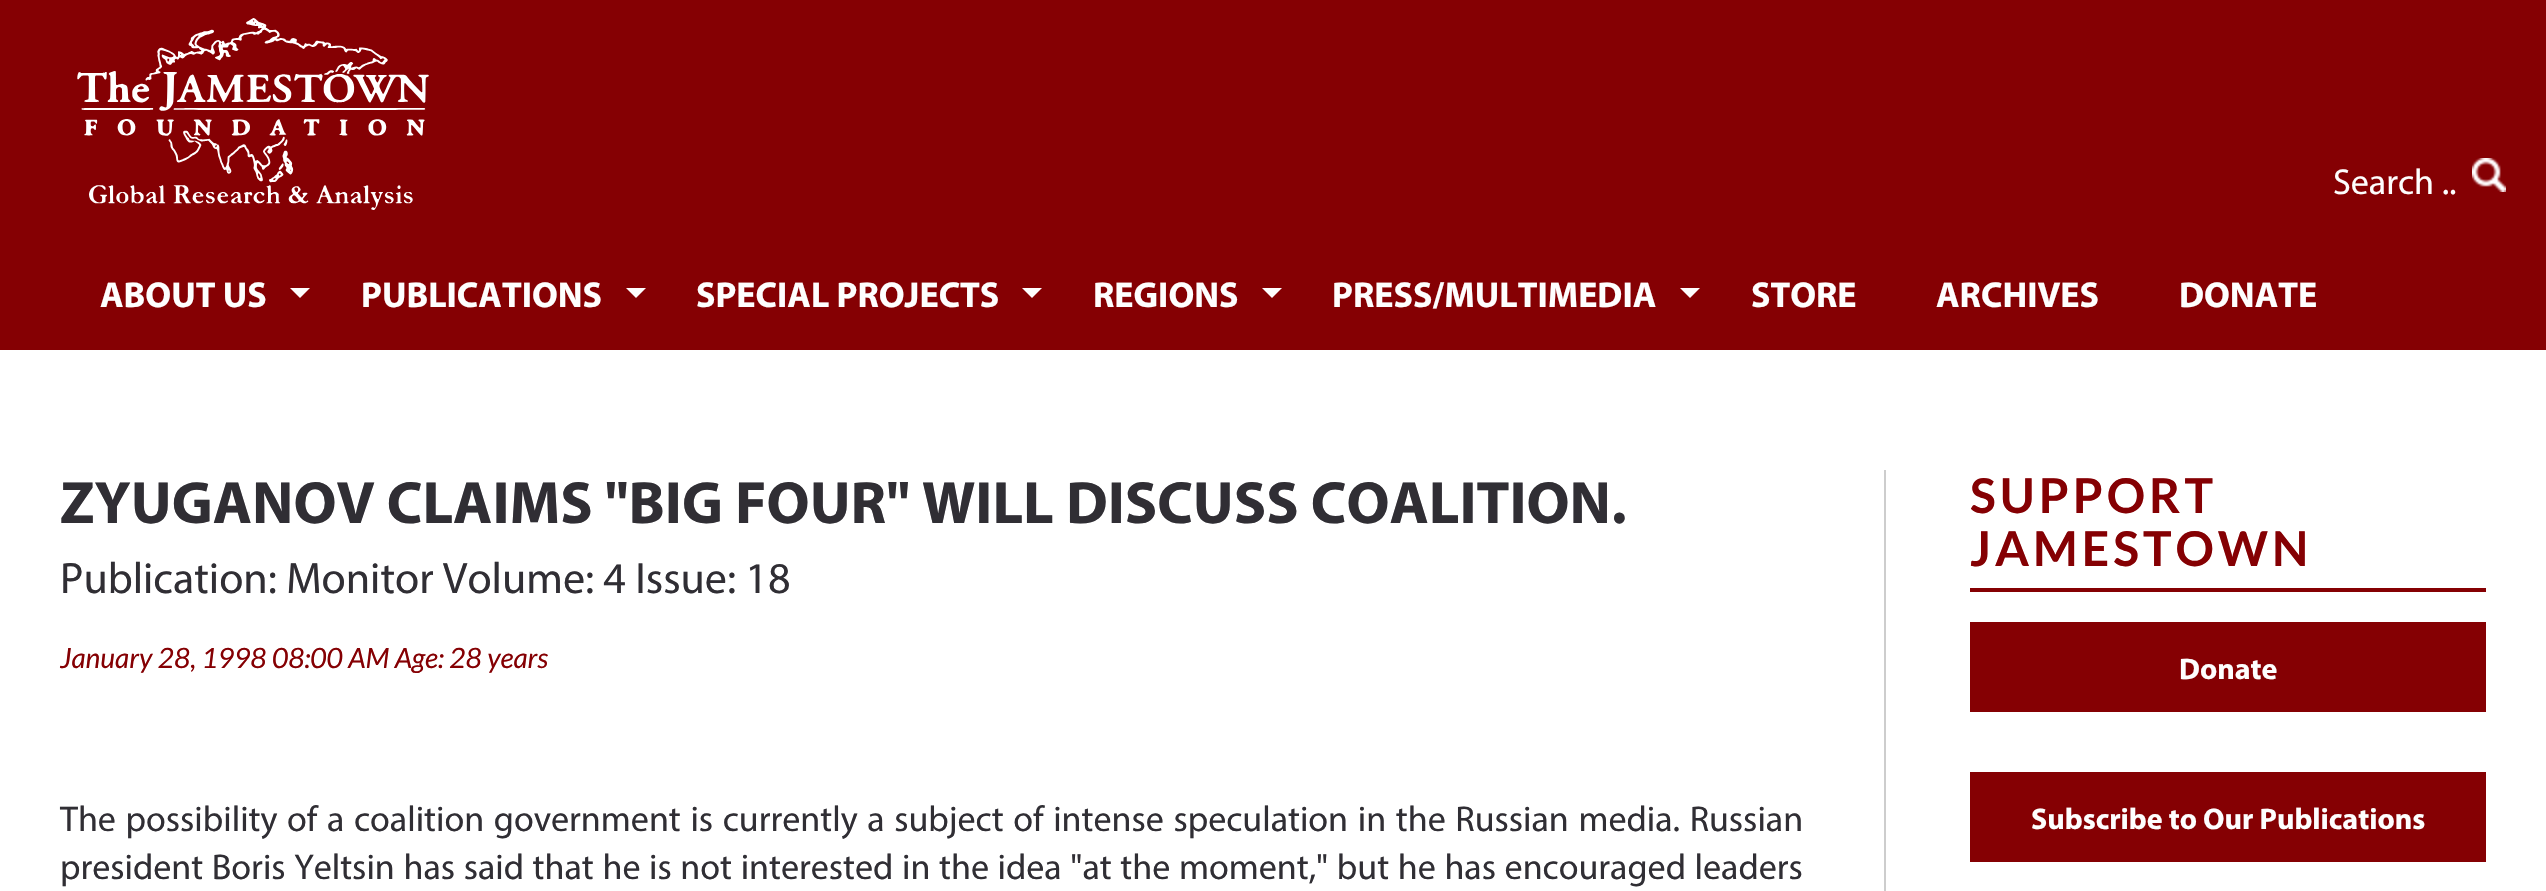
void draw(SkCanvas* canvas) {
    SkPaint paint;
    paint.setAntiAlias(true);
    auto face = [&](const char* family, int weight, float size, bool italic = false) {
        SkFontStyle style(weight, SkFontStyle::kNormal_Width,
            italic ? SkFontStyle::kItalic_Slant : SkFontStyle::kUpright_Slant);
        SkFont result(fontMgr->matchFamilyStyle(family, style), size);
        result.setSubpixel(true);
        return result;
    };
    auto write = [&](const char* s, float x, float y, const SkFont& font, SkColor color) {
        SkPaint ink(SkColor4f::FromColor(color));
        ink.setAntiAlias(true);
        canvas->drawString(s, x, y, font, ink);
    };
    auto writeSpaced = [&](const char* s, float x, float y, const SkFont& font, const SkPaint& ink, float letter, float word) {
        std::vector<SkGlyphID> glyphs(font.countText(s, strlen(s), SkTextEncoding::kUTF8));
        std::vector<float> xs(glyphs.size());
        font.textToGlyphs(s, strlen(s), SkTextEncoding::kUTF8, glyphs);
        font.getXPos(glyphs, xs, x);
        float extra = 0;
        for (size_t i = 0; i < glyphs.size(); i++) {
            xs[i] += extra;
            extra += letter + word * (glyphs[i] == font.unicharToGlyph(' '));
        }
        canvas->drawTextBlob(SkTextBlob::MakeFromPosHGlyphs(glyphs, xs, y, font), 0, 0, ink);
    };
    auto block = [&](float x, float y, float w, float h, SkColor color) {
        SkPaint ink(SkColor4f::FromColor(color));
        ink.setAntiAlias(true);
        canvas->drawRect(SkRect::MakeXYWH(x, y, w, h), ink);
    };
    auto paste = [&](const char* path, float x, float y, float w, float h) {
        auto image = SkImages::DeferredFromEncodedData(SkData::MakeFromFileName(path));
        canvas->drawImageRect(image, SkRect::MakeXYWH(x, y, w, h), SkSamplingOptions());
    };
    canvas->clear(SK_ColorWHITE);
    block(0, 0, 2546, 350, SkColorSetRGB(133, 0, 3));
    auto kFont1 = face("Myriad", 400, 36);
    write("Search ..", 2333, 194, kFont1, SkColorSetRGB(254, 254, 254));
    paste("pic1.png", 2472, 158, 34, 34);
    paste("pic2.png", 77, 18, 352, 192);
    auto kFont2 = face("Myriad", 700, 36);
    write("ABOUT US", 100, 307, kFont2, SkColorSetRGB(254, 254, 254));
    paint.setColor(SkColorSetRGB(254, 254, 254));
    canvas->drawPath(SkPathBuilder().moveTo(290, 288).lineTo(310, 288).lineTo(300, 298).close().detach(), paint);
    write("PUBLICATIONS", 361, 307, kFont2, SkColorSetRGB(254, 254, 254));
    canvas->drawPath(SkPathBuilder().moveTo(626, 288).lineTo(646, 288).lineTo(636, 298).close().detach(), paint);
    write("SPECIAL PROJECTS", 696, 307, kFont2, SkColorSetRGB(254, 254, 254));
    canvas->drawPath(SkPathBuilder().moveTo(1022, 288).lineTo(1042, 288).lineTo(1032, 298).close().detach(), paint);
    write("REGIONS", 1093, 307, kFont2, SkColorSetRGB(254, 254, 254));
    canvas->drawPath(SkPathBuilder().moveTo(1262, 288).lineTo(1282, 288).lineTo(1272, 298).close().detach(), paint);
    write("PRESS/MULTIMEDIA", 1332, 307, kFont2, SkColorSetRGB(254, 254, 254));
    canvas->drawPath(SkPathBuilder().moveTo(1680, 288).lineTo(1700, 288).lineTo(1690, 298).close().detach(), paint);
    write("STORE", 1751, 307, kFont2, SkColorSetRGB(254, 254, 254));
    write("ARCHIVES", 1936, 307, kFont2, SkColorSetRGB(254, 254, 254));
    write("DONATE", 2179, 307, kFont2, SkColorSetRGB(254, 254, 254));
    auto kFont3 = face("Myriad", 700, 60);
    write("ZYUGANOV CLAIMS \"BIG FOUR\" WILL DISCUSS COALITION.", 60, 523, kFont3, SkColorSetRGB(48, 46, 52));
    auto kFont4 = face("Myriad", 400, 44);
    write("Publication: Monitor Volume: 4 Issue: 18", 60, 593, kFont4, SkColorSetRGB(48, 46, 52));
    auto kFont5 = face("Lato", 400, 28, true);
    write("January 28, 1998 08:00 AM Age: 28 years", 60, 668, kFont5, SkColorSetRGB(133, 0, 3));
    block(1884, 470, 2, 421, SkColorSetRGB(205, 205, 205));
    paint.setColor(SkColorSetRGB(48, 46, 52));
    writeSpaced("The possibility of a coalition government is currently a subject of intense speculation in the Russian media. Russian", 60, 831, kFont1, paint, 0, 2);
    writeSpaced("president Boris Yeltsin has said that he is not interested in the idea \"at the moment,\" but he has encouraged leaders", 60, 879, kFont1, paint, 0, 1);
    block(1970, 588, 516, 4, SkColorSetRGB(133, 0, 3));
    auto kFont6 = face("Lato", 700, 48);
    paint.setColor(SkColorSetRGB(133, 0, 3));
    writeSpaced("SUPPORT", 1970, 513, kFont6, paint, 4, 0);
    writeSpaced("JAMESTOWN", 1970, 566, kFont6, paint, 4, 0);
    block(1970, 622, 516, 90, SkColorSetRGB(133, 0, 3));
    auto kFont7 = face("Myriad", 700, 30);
    write("Donate", 2179, 679, kFont7, SkColorSetRGB(254, 254, 254));
    block(1970, 772, 516, 90, SkColorSetRGB(133, 0, 3));
    write("Subscribe to Our Publications", 2031, 829, kFont7, SkColorSetRGB(254, 254, 254));
}
